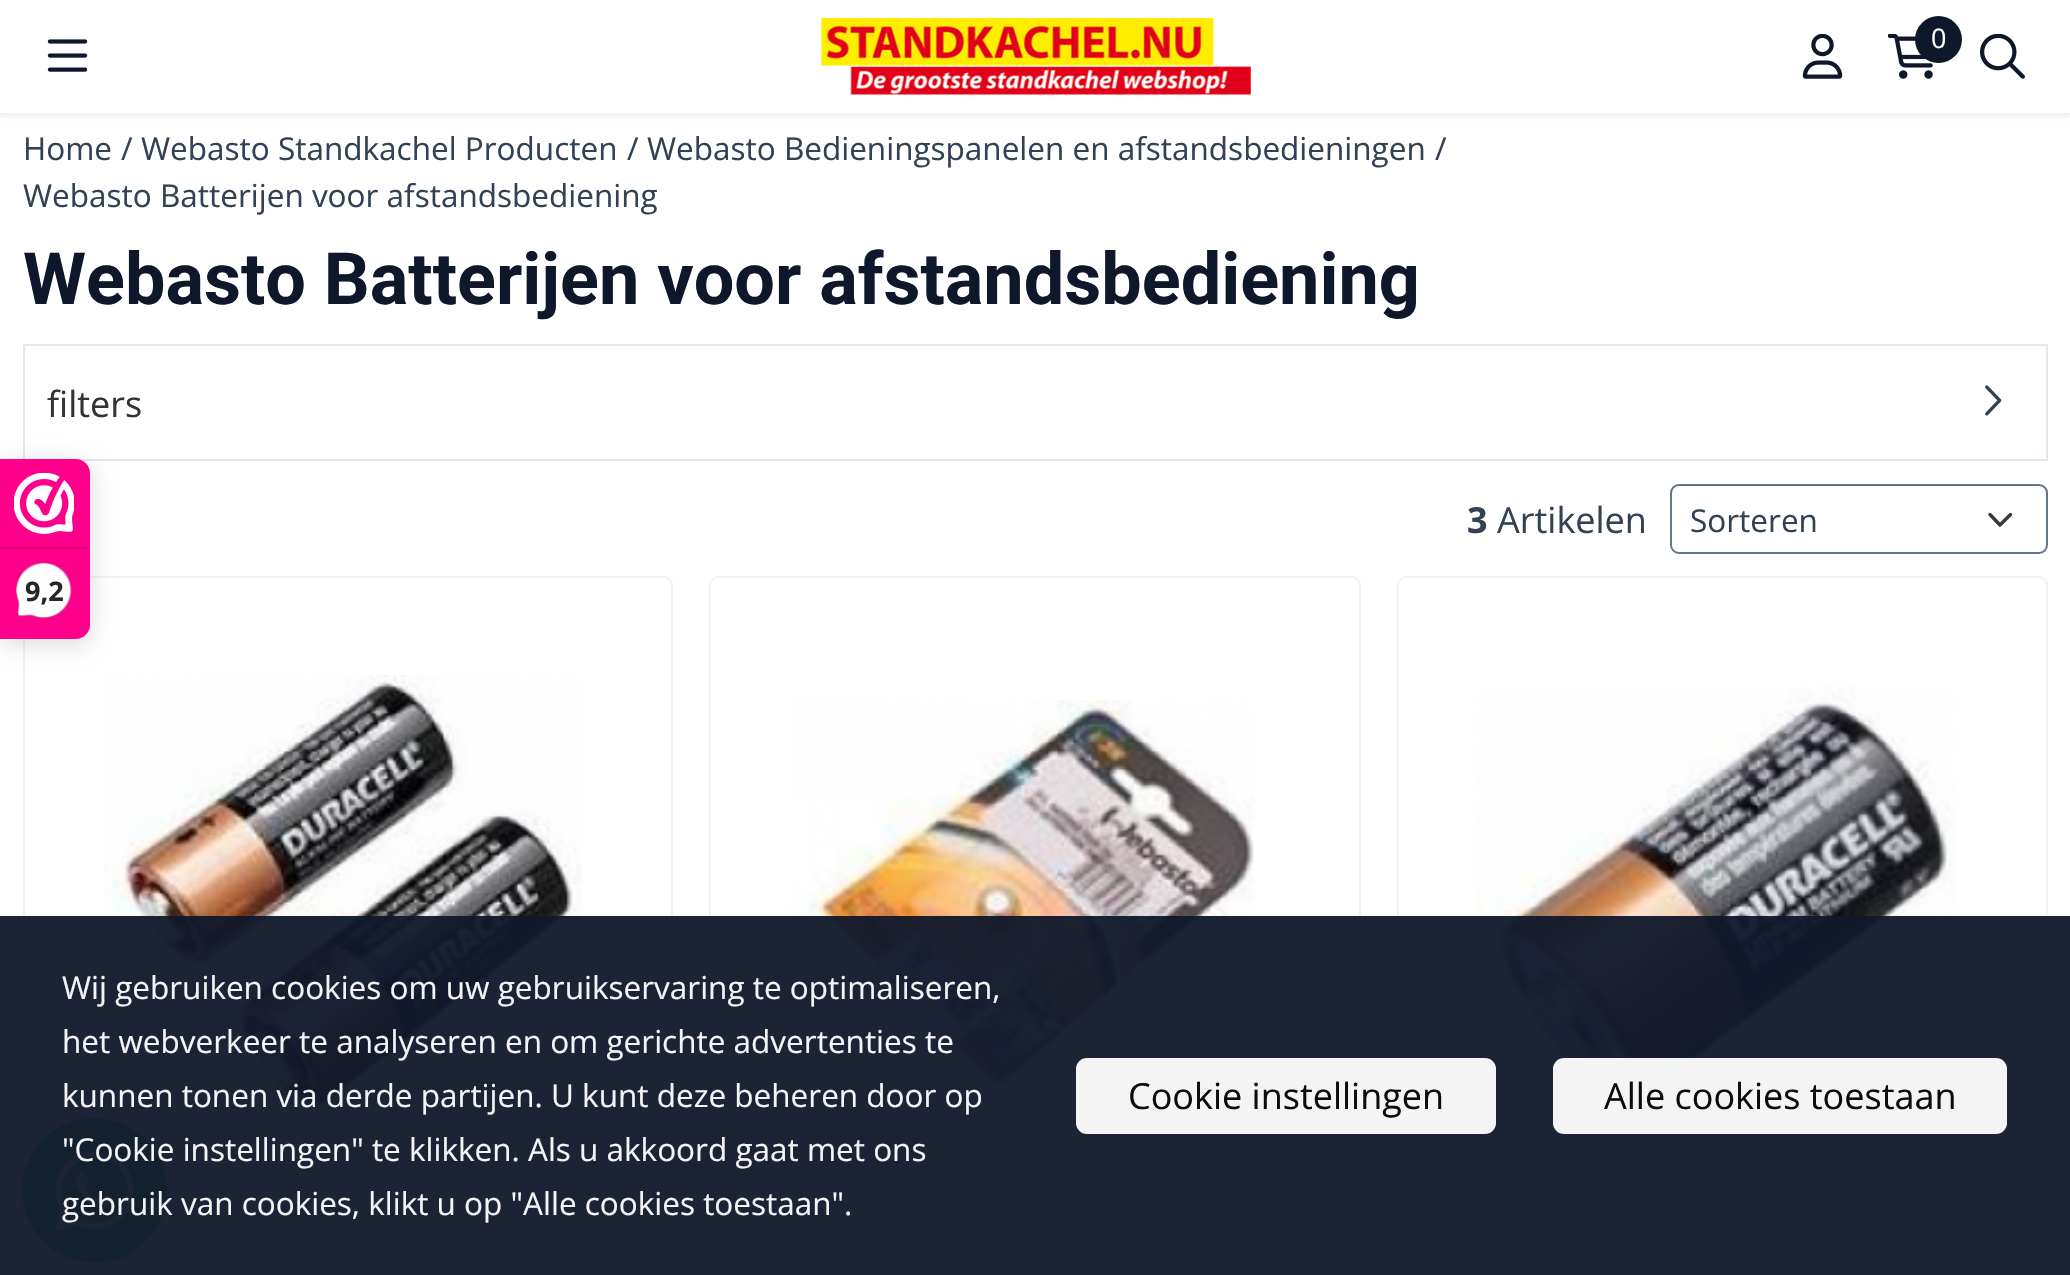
void draw(SkCanvas* canvas) {
    SkPaint paint;
    paint.setAntiAlias(true);
    auto face = [&](const char* family, int weight, float size, bool italic = false) {
        SkFontStyle style(weight, SkFontStyle::kNormal_Width,
            italic ? SkFontStyle::kItalic_Slant : SkFontStyle::kUpright_Slant);
        SkFont result(fontMgr->matchFamilyStyle(family, style), size);
        result.setSubpixel(true);
        return result;
    };
    auto write = [&](const char* s, float x, float y, const SkFont& font, SkColor color) {
        SkPaint ink(SkColor4f::FromColor(color));
        ink.setAntiAlias(true);
        canvas->drawString(s, x, y, font, ink);
    };
    auto block = [&](float x, float y, float w, float h, SkColor color) {
        SkPaint ink(SkColor4f::FromColor(color));
        ink.setAntiAlias(true);
        canvas->drawRect(SkRect::MakeXYWH(x, y, w, h), ink);
    };
    auto card = [&](float x, float y, float w, float h, float radius, SkColor color) {
        SkPaint ink(SkColor4f::FromColor(color));
        ink.setAntiAlias(true);
        canvas->drawRoundRect(SkRect::MakeXYWH(x, y, w, h), radius, radius, ink);
    };
    auto paste = [&](const char* path, float x, float y, float w, float h) {
        auto image = SkImages::DeferredFromEncodedData(SkData::MakeFromFileName(path));
        canvas->drawImageRect(image, SkRect::MakeXYWH(x, y, w, h), SkSamplingOptions());
    };
    canvas->clear(SK_ColorWHITE);
    paint.setColor(SkColorSetARGB(13, 0, 0, 0));
    paint.setMaskFilter(SkMaskFilter::MakeBlur(kNormal_SkBlurStyle, 2));
    canvas->drawRect(SkRect::MakeXYWH(0, 2, 2070, 115), paint);
    paint.setMaskFilter(nullptr);
    block(0, 0, 2070, 113, SK_ColorWHITE);
    block(0, 113, 2070, 2, SkColorSetRGB(242, 242, 242));
    paste("pic1.png", 47, 39, 41, 33);
    paste("pic2.png", 820, 18, 431, 77);
    paste("pic3.png", 1802, 34, 41, 45);
    paste("pic4.png", 1888, 34, 45, 45);
    paint.setColor(SkColorSetRGB(15, 23, 42));
    canvas->drawCircle(1938.5f, 39.5f, 23.5f, paint);
    auto kFont1 = face("Open Sans", 400, 27);
    write("0", 1931, 48, kFont1, SK_ColorWHITE);
    paste("pic5.png", 1980, 34, 45, 45);
    auto kFont2 = face("Open Sans", 400, 31.5f);
    write("Home", 23, 160, kFont2, SkColorSetRGB(51, 65, 85));
    write("/", 121, 160, kFont2, SkColorSetRGB(51, 65, 85));
    write("Webasto Standkachel Producten", 141, 160, kFont2, SkColorSetRGB(51, 65, 85));
    write("/", 627, 160, kFont2, SkColorSetRGB(51, 65, 85));
    write("Webasto Bedieningspanelen en afstandsbedieningen", 647, 160, kFont2, SkColorSetRGB(51, 65, 85));
    write("/", 1435, 160, kFont2, SkColorSetRGB(51, 65, 85));
    write("Webasto Batterijen voor afstandsbediening", 23, 207, kFont2, SkColorSetRGB(51, 65, 85));
    auto kFont3 = face("Roboto", 700, 72);
    write("Webasto Batterijen voor afstandsbediening", 23, 304, kFont3, SkColorSetRGB(15, 23, 42));
    paint.setStyle(SkPaint::kStroke_Style);
    paint.setStrokeWidth(2);
    paint.setColor(SkColorSetRGB(226, 232, 240));
    canvas->drawRect(SkRect::MakeXYWH(24, 345, 2023, 115), paint);
    auto kFont4 = face("Open Sans", 400, 36);
    write("filters", 47, 417, kFont4, SkColorSetRGB(51, 51, 51));
    paste("pic6.png", 1985, 385, 17, 31);
    auto kFont5 = face("Open Sans", 700, 36);
    write("3", 1467, 533, kFont5, SkColorSetRGB(51, 65, 85));
    write("Artikelen", 1497, 533, kFont4, SkColorSetRGB(51, 65, 85));
    paint.setStrokeWidth(3.4f);
    paint.setStrokeCap(SkPaint::kRound_Cap);
    paint.setStrokeJoin(SkPaint::kRound_Join);
    paint.setColor(SkColorSetRGB(52, 58, 64));
    canvas->drawPath(SkPathBuilder().moveTo(1990, 514.5f).lineTo(2000, 525).lineTo(2010.5f, 514.5f).detach(), paint);
    paint.setStrokeWidth(2);
    paint.setStrokeCap(SkPaint::kButt_Cap);
    paint.setStrokeJoin(SkPaint::kMiter_Join);
    paint.setColor(SkColorSetRGB(100, 116, 139));
    canvas->drawRoundRect(SkRect::MakeXYWH(1671, 485, 376, 68), 8, 8, paint);
    write("Sorteren", 1690, 532, kFont2, SkColorSetRGB(51, 65, 85));
    paint.setColor(SkColorSetRGB(242, 242, 242));
    canvas->drawRoundRect(SkRect::MakeXYWH(24, 577, 648, 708), 8, 8, paint);
    paste("pic7.png", 104, 675, 478, 454);
    canvas->drawRoundRect(SkRect::MakeXYWH(710, 577, 650, 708), 8, 8, paint);
    paste("pic8.png", 790, 700, 464, 404);
    canvas->drawRoundRect(SkRect::MakeXYWH(1398, 577, 649, 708), 8, 8, paint);
    paste("pic9.png", 1476, 686, 479, 432);
    paint.setStyle(SkPaint::kFill_Style);
    paint.setColor(SkColorSetARGB(38, 0, 0, 0));
    paint.setMaskFilter(SkMaskFilter::MakeBlur(kNormal_SkBlurStyle, 11));
    canvas->drawRoundRect(SkRect::MakeXYWH(0, 464, 90, 180), 14, 14, paint);
    paint.setMaskFilter(nullptr);
    paint.setColor(SkColorSetRGB(254, 0, 140));
    canvas->drawPath(SkPathBuilder().moveTo(0, 459).lineTo(76, 459).cubicTo(83.5f, 459, 90, 465.5f, 90, 473).lineTo(90, 625).cubicTo(90, 632.5f, 83.5f, 639, 76, 639).lineTo(0, 639).close().detach(), paint);
    paste("pic10.png", 14, 473, 60, 61);
    block(0, 547, 88, 2, SkColorSetRGB(216, 0, 119));
    paste("pic11.png", 16, 562, 56, 57);
    auto kFont6 = face("Open Sans", 700, 27);
    write("9,2", 25, 601, kFont6, SkColorSetRGB(39, 38, 38));
    paste("pic12.png", 20, 1117, 149, 147);
    block(0, 916, 2070, 359, SkColorSetARGB(242, 15, 23, 42));
    write("Wij gebruiken cookies om uw gebruikservaring te optimaliseren,", 62, 999, kFont2, SkColorSetRGB(244, 244, 245));
    write("het webverkeer te analyseren en om gerichte advertenties te", 62, 1053, kFont2, SkColorSetRGB(244, 244, 245));
    write("kunnen tonen via derde partijen. U kunt deze beheren door op", 62, 1107, kFont2, SkColorSetRGB(244, 244, 245));
    write("\"Cookie instellingen\" te klikken. Als u akkoord gaat met ons", 62, 1161, kFont2, SkColorSetRGB(244, 244, 245));
    write("gebruik van cookies, klikt u op \"Alle cookies toestaan\".", 62, 1215, kFont2, SkColorSetRGB(244, 244, 245));
    card(1076, 1058, 420, 76, 11, SkColorSetRGB(244, 244, 245));
    write("Cookie instellingen", 1128, 1109, kFont4, SkColorSetRGB(12, 12, 12));
    card(1553, 1058, 454, 76, 11, SkColorSetARGB(242, 255, 255, 255));
    write("Alle cookies toestaan", 1604, 1109, kFont4, SkColorSetRGB(12, 12, 12));
}
